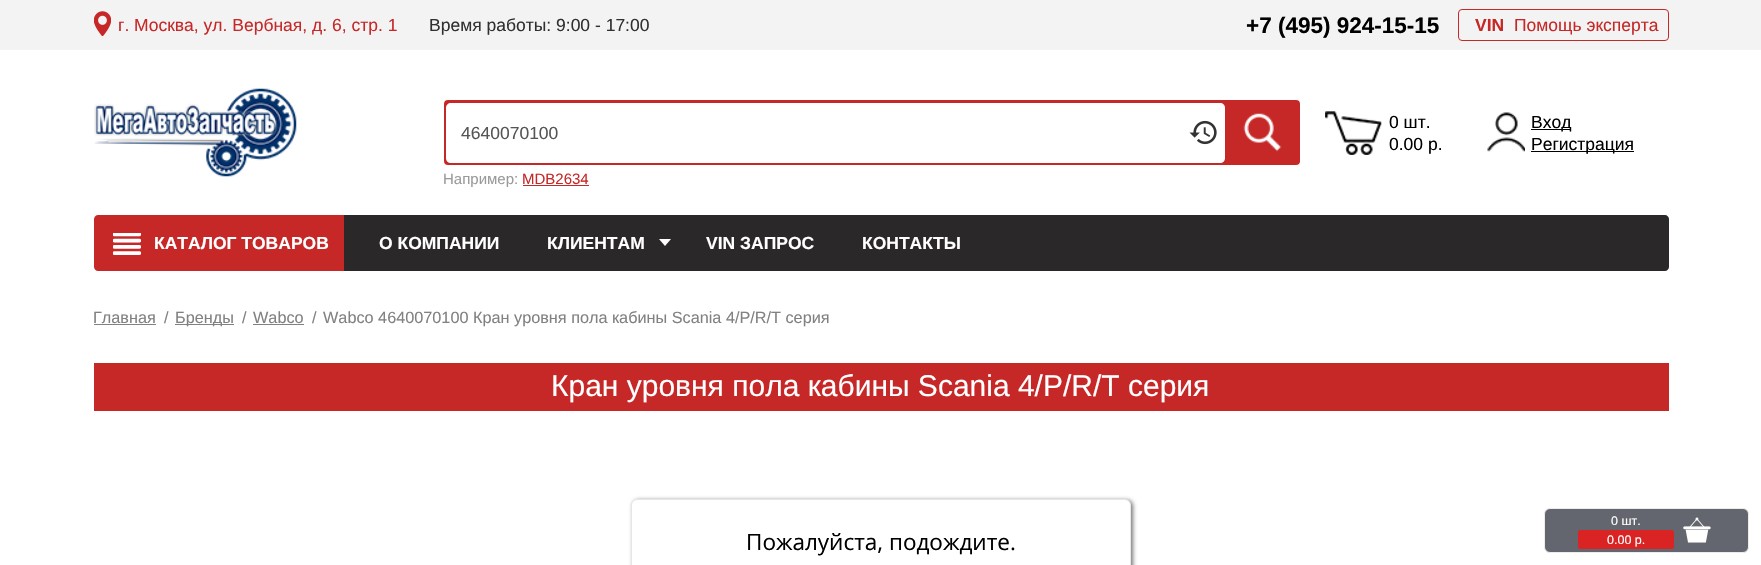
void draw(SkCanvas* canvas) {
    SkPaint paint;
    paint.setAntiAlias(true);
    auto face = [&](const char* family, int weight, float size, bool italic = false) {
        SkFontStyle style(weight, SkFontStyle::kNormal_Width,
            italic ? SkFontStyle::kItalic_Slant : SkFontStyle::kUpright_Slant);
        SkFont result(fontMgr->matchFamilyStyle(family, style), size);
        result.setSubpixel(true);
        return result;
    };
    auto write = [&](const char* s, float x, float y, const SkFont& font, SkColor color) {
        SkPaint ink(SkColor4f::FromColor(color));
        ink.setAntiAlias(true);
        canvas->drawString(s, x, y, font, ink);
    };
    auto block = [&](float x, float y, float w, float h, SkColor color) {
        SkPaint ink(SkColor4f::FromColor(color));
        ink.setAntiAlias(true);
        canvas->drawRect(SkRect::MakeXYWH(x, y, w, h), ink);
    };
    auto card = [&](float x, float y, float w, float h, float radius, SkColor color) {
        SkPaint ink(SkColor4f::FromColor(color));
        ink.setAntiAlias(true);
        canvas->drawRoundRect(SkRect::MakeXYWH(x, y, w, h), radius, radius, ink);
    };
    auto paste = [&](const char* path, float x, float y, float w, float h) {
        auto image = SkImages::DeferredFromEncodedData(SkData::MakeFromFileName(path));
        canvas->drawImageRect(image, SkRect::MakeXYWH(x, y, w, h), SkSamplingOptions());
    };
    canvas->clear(SK_ColorWHITE);
    block(0, 0, 1761, 50, SkColorSetRGB(243, 243, 243));
    paste("pic1.png", 94, 11, 17, 25);
    auto kFont1 = face("Liberation Sans", 400, 17.5f);
    write("г. Москва, ул. Вербная, д. 6, стр. 1", 118, 31, kFont1, SkColorSetRGB(198, 40, 40));
    write("Время работы: 9:00 - 17:00", 429, 31, kFont1, SkColorSetRGB(48, 48, 48));
    auto kFont2 = face("Liberation Sans", 700, 22.5f);
    write("+7 (495) 924-15-15", 1246, 33, kFont2, SK_ColorBLACK);
    paint.setStyle(SkPaint::kStroke_Style);
    paint.setStrokeWidth(1);
    paint.setColor(SkColorSetRGB(198, 40, 40));
    canvas->drawRoundRect(SkRect::MakeXYWH(1458.5f, 9.5f, 210, 31), 3.5f, 3.5f, paint);
    auto kFont3 = face("Liberation Sans", 700, 17.5f);
    write("VIN", 1475, 31, kFont3, SkColorSetRGB(198, 40, 40));
    write("Помощь эксперта", 1514, 31, kFont1, SkColorSetRGB(198, 40, 40));
    paste("pic2.png", 94, 88, 203, 89);
    card(444, 100, 856, 65, 4, SkColorSetRGB(198, 40, 40));
    paint.setStyle(SkPaint::kFill_Style);
    paint.setColor(SK_ColorWHITE);
    canvas->drawPath(SkPathBuilder().moveTo(451, 103).lineTo(1183, 103).lineTo(1183, 163).lineTo(451, 163).cubicTo(448, 163, 446, 161, 446, 158).lineTo(446, 108).cubicTo(446, 105, 448, 103, 451, 103).close().detach(), paint);
    write("4640070100", 461, 139, kFont1, SkColorSetRGB(85, 85, 85));
    canvas->drawPath(SkPathBuilder().moveTo(1183, 103).lineTo(1220, 103).cubicTo(1223, 103, 1225, 105, 1225, 108).lineTo(1225, 158).cubicTo(1225, 161, 1223, 163, 1220, 163).lineTo(1183, 163).close().detach(), paint);
    paste("pic3.png", 1189, 120, 28, 25);
    paste("pic4.png", 1243, 113, 39, 39);
    auto kFont4 = face("Liberation Sans", 400, 15);
    write("Например:", 443, 184, kFont4, SkColorSetRGB(154, 154, 154));
    write("MDB2634", 522, 184, kFont4, SkColorSetRGB(198, 40, 40));
    block(523, 185, 66, 1, SkColorSetRGB(198, 40, 40));
    paste("pic5.png", 1325, 111, 57, 44);
    write("0 шт.", 1389, 128, kFont1, SK_ColorBLACK);
    write("0.00 р.", 1389, 150, kFont1, SK_ColorBLACK);
    paste("pic6.png", 1487, 112, 38, 40);
    block(1531, 129, 40, 1, SK_ColorBLACK);
    write("Вход", 1531, 128, kFont1, SK_ColorBLACK);
    block(1531, 151, 103, 1, SK_ColorBLACK);
    write("Регистрация", 1531, 150, kFont1, SK_ColorBLACK);
    paint.setColor(SkColorSetRGB(198, 40, 40));
    canvas->drawPath(SkPathBuilder().moveTo(98, 215).lineTo(344, 215).lineTo(344, 271).lineTo(98, 271).cubicTo(96, 271, 94, 269, 94, 267).lineTo(94, 219).cubicTo(94, 217, 96, 215, 98, 215).close().detach(), paint);
    paste("pic7.png", 113, 233, 28, 22);
    write("КАТАЛОГ ТОВАРОВ", 154, 249, kFont3, SK_ColorWHITE);
    paint.setColor(SkColorSetRGB(43, 40, 41));
    canvas->drawPath(SkPathBuilder().moveTo(344, 215).lineTo(1665, 215).cubicTo(1667, 215, 1669, 217, 1669, 219).lineTo(1669, 267).cubicTo(1669, 269, 1667, 271, 1665, 271).lineTo(344, 271).close().detach(), paint);
    write("О КОМПАНИИ", 379, 249, kFont3, SK_ColorWHITE);
    write("КЛИЕНТАМ", 547, 249, kFont3, SK_ColorWHITE);
    paint.setColor(SK_ColorWHITE);
    canvas->drawPath(SkPathBuilder().moveTo(659, 239).lineTo(671, 239).lineTo(665, 246).close().detach(), paint);
    write("VIN ЗАПРОС", 706, 249, kFont3, SK_ColorWHITE);
    write("КОНТАКТЫ", 862, 249, kFont3, SK_ColorWHITE);
    auto kFont5 = face("Liberation Sans", 400, 16.25f);
    write("Главная", 93, 323, kFont5, SkColorSetRGB(129, 129, 129));
    block(94, 324, 62, 1, SkColorSetRGB(129, 129, 129));
    write("/", 164, 323, kFont5, SkColorSetRGB(129, 129, 129));
    block(175, 324, 59, 1, SkColorSetRGB(129, 129, 129));
    write("Бренды", 175, 323, kFont5, SkColorSetRGB(129, 129, 129));
    write("/", 242, 323, kFont5, SkColorSetRGB(129, 129, 129));
    write("Wabco", 253, 323, kFont5, SkColorSetRGB(129, 129, 129));
    block(253, 324, 51, 1, SkColorSetRGB(129, 129, 129));
    write("/", 312, 323, kFont5, SkColorSetRGB(129, 129, 129));
    write("Wabco 4640070100 Кран уровня пола кабины Scania 4/P/R/T серия", 323, 323, kFont5, SkColorSetRGB(129, 129, 129));
    block(94, 363, 1575, 48, SkColorSetRGB(198, 40, 40));
    auto kFont6 = face("Liberation Sans", 400, 30);
    write("Кран уровня пола кабины Scania 4/P/R/T серия", 551, 396, kFont6, SK_ColorWHITE);
    paint.setColor(SkColorSetRGB(119, 119, 119));
    paint.setMaskFilter(SkMaskFilter::MakeBlur(kNormal_SkBlurStyle, 2));
    canvas->drawRoundRect(SkRect::MakeXYWH(633, 500, 500, 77), 6, 6, paint);
    paint.setMaskFilter(nullptr);
    paint.setColor(SK_ColorWHITE);
    canvas->drawRoundRect(SkRect::MakeXYWH(631.5f, 499.5f, 499, 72), 5.5f, 5.5f, paint);
    paint.setStyle(SkPaint::kStroke_Style);
    paint.setColor(SkColorSetRGB(230, 230, 230));
    canvas->drawRoundRect(SkRect::MakeXYWH(631.5f, 499.5f, 499, 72), 5.5f, 5.5f, paint);
    auto kFont7 = face("Open Sans", 400, 22.5f);
    write("Пожалуйста, подождите.", 746, 550, kFont7, SK_ColorBLACK);
    paint.setStyle(SkPaint::kFill_Style);
    paint.setColor(SkColorSetRGB(100, 102, 111));
    canvas->drawRoundRect(SkRect::MakeXYWH(1544.5f, 508.5f, 204, 44), 5.5f, 5.5f, paint);
    paint.setStyle(SkPaint::kStroke_Style);
    paint.setColor(SkColorSetRGB(236, 236, 236));
    canvas->drawRoundRect(SkRect::MakeXYWH(1544.5f, 508.5f, 204, 44), 5.5f, 5.5f, paint);
    paste("pic8.png", 1683, 517, 28, 26);
    auto kFont8 = face("Liberation Sans", 400, 12.5f);
    write("0 шт.", 1611, 525, kFont8, SK_ColorWHITE);
    card(1578, 530, 96, 19, 2.5f, SkColorSetRGB(218, 36, 36));
    write("0.00 р.", 1607, 544, kFont8, SK_ColorWHITE);
}
